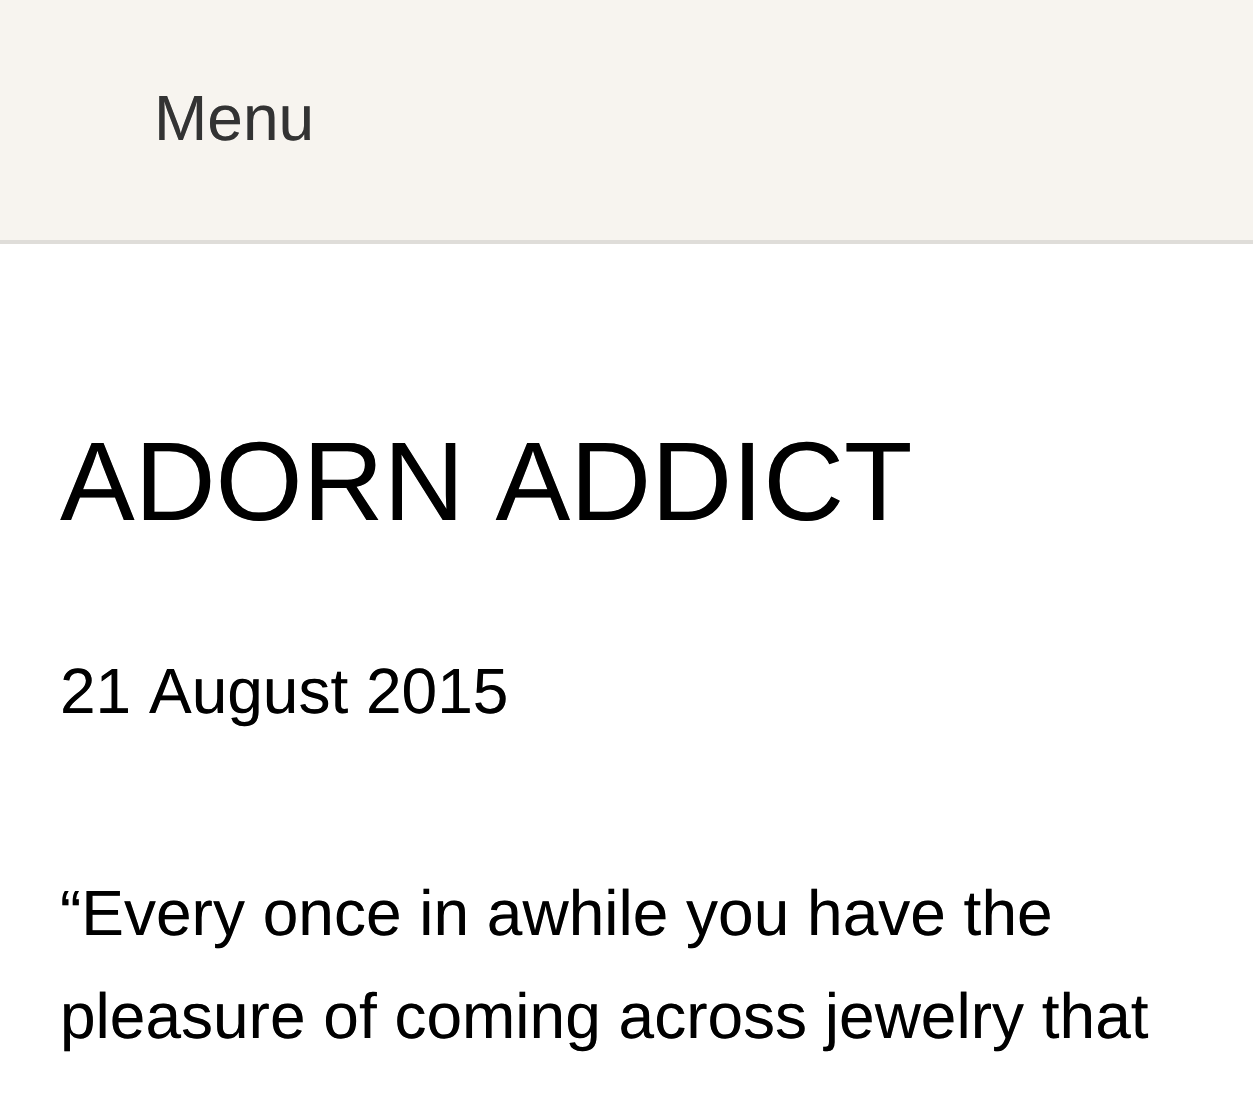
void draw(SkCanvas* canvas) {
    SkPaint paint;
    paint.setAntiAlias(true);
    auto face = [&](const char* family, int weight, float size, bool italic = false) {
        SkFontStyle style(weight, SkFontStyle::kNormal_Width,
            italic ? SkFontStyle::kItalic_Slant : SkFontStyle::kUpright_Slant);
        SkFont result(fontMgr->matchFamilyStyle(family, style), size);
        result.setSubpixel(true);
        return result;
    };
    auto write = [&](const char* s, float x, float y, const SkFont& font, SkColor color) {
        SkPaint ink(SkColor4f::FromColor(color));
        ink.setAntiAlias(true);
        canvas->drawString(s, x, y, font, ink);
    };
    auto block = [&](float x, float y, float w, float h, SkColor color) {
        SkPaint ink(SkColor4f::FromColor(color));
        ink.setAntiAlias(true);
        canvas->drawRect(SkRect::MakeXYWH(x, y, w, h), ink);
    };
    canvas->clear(SK_ColorWHITE);
    block(0, 0, 1253, 240, SkColorSetRGB(247, 244, 239));
    block(0, 240, 1253, 4, SkColorSetRGB(223, 221, 217));
    auto kFont1 = face("Liberation Sans", 400, 64);
    write("Menu", 154, 140, kFont1, SkColorSetRGB(51, 51, 51));
    auto kFont2 = face("Liberation Sans", 400, 112);
    write("ADORN ADDICT", 60, 520, kFont2, SK_ColorBLACK);
    write("21 August 2015", 60, 713, kFont1, SK_ColorBLACK);
    write("“Every once in awhile you have the", 60, 935, kFont1, SK_ColorBLACK);
    write("pleasure of coming across jewelry that", 60, 1038, kFont1, SK_ColorBLACK);
}
